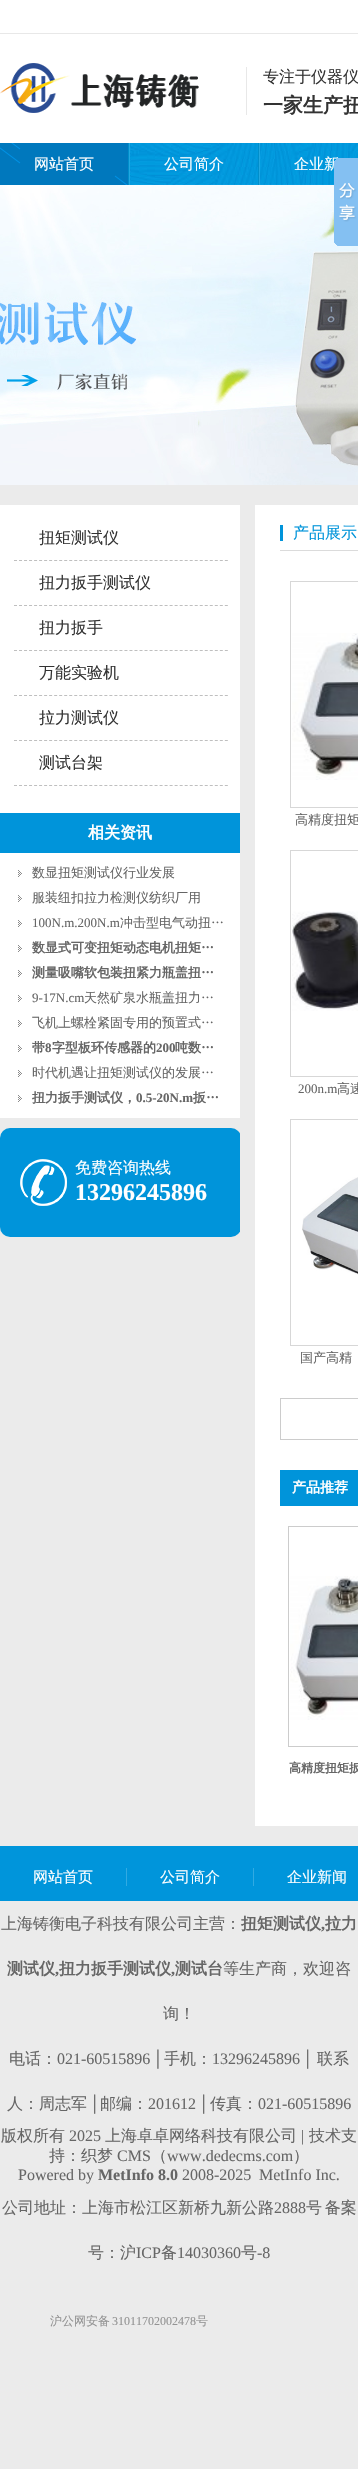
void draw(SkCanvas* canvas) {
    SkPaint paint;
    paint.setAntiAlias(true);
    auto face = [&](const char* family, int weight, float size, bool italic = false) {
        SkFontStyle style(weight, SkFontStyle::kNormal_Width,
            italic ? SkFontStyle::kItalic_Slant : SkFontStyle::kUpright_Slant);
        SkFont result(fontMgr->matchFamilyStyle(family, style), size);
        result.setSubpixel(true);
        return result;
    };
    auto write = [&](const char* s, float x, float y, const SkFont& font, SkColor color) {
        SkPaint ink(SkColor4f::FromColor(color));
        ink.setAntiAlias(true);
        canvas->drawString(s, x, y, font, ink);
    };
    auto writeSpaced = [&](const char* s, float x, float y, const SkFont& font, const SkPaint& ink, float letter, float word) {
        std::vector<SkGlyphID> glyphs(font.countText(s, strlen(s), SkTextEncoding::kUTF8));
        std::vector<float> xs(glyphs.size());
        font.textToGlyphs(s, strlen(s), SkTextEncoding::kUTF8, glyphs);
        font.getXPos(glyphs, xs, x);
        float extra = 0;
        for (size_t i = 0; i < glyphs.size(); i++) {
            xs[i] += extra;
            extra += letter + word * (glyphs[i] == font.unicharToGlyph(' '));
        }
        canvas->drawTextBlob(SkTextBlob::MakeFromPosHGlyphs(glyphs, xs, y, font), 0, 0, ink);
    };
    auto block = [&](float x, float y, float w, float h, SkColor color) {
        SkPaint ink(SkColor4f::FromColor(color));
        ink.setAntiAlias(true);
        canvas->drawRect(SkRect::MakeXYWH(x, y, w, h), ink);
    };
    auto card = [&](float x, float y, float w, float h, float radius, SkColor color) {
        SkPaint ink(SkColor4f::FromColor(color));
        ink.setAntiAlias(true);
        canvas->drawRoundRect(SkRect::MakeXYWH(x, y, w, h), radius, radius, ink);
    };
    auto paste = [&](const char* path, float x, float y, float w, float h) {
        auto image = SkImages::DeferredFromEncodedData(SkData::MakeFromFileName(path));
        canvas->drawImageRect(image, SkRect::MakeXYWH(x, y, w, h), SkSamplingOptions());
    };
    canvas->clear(SkColorSetRGB(235, 235, 235));
    block(0, 0, 358, 143, SK_ColorWHITE);
    block(0, 33, 358, 1, SkColorSetRGB(232, 232, 232));
    paste("pic1.png", 0, 63, 199, 50);
    block(246, 67, 1, 48, SkColorSetRGB(232, 232, 232));
    auto kFont1 = face("WenQuanYi Zen Hei", 500, 16);
    write("专注于仪器仪", 263, 82, kFont1, SkColorSetRGB(51, 51, 51));
    auto kFont2 = face("WenQuanYi Zen Hei", 700, 20);
    write("一家生产扭", 263, 112, kFont2, SkColorSetRGB(51, 51, 51));
    paste("pic2.png", 130, 143, 228, 42);
    paste("pic3.png", 0, 143, 128, 42);
    block(128, 143, 1, 42, SkColorSetRGB(0, 142, 202));
    auto kFont3 = face("WenQuanYi Zen Hei", 500, 15);
    write("网站首页", 34, 169, kFont3, SK_ColorWHITE);
    block(258, 143, 1, 42, SkColorSetRGB(0, 142, 202));
    block(129, 143, 1, 42, SkColorSetRGB(34, 167, 224));
    write("公司简介", 164, 169, kFont3, SK_ColorWHITE);
    block(259, 143, 1, 42, SkColorSetRGB(34, 167, 224));
    write("企业新", 294, 169, kFont3, SK_ColorWHITE);
    paste("pic5.png", 0, 185, 358, 300);
    paste("pic4.png", 334, 158, 24, 88);
    block(0, 505, 240, 613, SK_ColorWHITE);
    paint.setStyle(SkPaint::kStroke_Style);
    paint.setStrokeWidth(1);
    paint.setColor(SkColorSetRGB(191, 191, 191));
    paint.setPathEffect(SkDashPathEffect::Make({{3, 2.02f}}, 0));
    canvas->drawPath(SkPathBuilder().moveTo(14, 560.5f).lineTo(228, 560.5f).detach(), paint);
    paint.setPathEffect(nullptr);
    write("扭矩测试仪", 39, 543, kFont1, SkColorSetRGB(51, 51, 51));
    paint.setPathEffect(SkDashPathEffect::Make({{3, 2.02f}}, 0));
    canvas->drawPath(SkPathBuilder().moveTo(14, 605.5f).lineTo(228, 605.5f).detach(), paint);
    paint.setPathEffect(nullptr);
    write("扭力扳手测试仪", 39, 588, kFont1, SkColorSetRGB(51, 51, 51));
    paint.setPathEffect(SkDashPathEffect::Make({{3, 2.02f}}, 0));
    canvas->drawPath(SkPathBuilder().moveTo(14, 650.5f).lineTo(228, 650.5f).detach(), paint);
    paint.setPathEffect(nullptr);
    write("扭力扳手", 39, 633, kFont1, SkColorSetRGB(51, 51, 51));
    paint.setPathEffect(SkDashPathEffect::Make({{3, 2.02f}}, 0));
    canvas->drawPath(SkPathBuilder().moveTo(14, 695.5f).lineTo(228, 695.5f).detach(), paint);
    paint.setPathEffect(nullptr);
    write("万能实验机", 39, 678, kFont1, SkColorSetRGB(51, 51, 51));
    paint.setPathEffect(SkDashPathEffect::Make({{3, 2.02f}}, 0));
    canvas->drawPath(SkPathBuilder().moveTo(14, 740.5f).lineTo(228, 740.5f).detach(), paint);
    paint.setPathEffect(nullptr);
    write("拉力测试仪", 39, 723, kFont1, SkColorSetRGB(51, 51, 51));
    paint.setPathEffect(SkDashPathEffect::Make({{3, 2.02f}}, 0));
    canvas->drawPath(SkPathBuilder().moveTo(14, 785.5f).lineTo(228, 785.5f).detach(), paint);
    paint.setPathEffect(nullptr);
    write("测试台架", 39, 768, kFont1, SkColorSetRGB(51, 51, 51));
    block(0, 813, 240, 40, SkColorSetRGB(0, 148, 218));
    auto kFont4 = face("WenQuanYi Zen Hei", 700, 16);
    write("相关资讯", 88, 838, kFont4, SK_ColorWHITE);
    paste("pic6.png", 18, 870, 4, 7);
    auto kFont5 = face("WenQuanYi Zen Hei", 500, 13);
    write("数显扭矩测试仪行业发展", 32, 877, kFont5, SkColorSetRGB(102, 102, 102));
    paste("pic6.png", 18, 895, 4, 7);
    write("服装纽扣拉力检测仪纺织厂用", 32, 902, kFont5, SkColorSetRGB(102, 102, 102));
    paste("pic6.png", 18, 920, 4, 7);
    auto kFont6 = face("Liberation Serif", 400, 13);
    write("100N.m.200N.m", 32, 927, kFont6, SkColorSetRGB(102, 102, 102));
    write("冲击型电气动扭…", 120, 927, kFont5, SkColorSetRGB(102, 102, 102));
    paste("pic6.png", 18, 945, 4, 7);
    auto kFont7 = face("WenQuanYi Zen Hei", 700, 13);
    paint.setStyle(SkPaint::kFill_Style);
    paint.setColor(SkColorSetRGB(102, 102, 102));
    writeSpaced("数显式可变扭矩动态电机扭矩…", 32, 952, kFont7, paint, 0, -1);
    paste("pic6.png", 18, 970, 4, 7);
    write("测量吸嘴软包装扭紧力瓶盖扭…", 32, 977, kFont7, SkColorSetRGB(102, 102, 102));
    paste("pic6.png", 18, 995, 4, 7);
    write("9-17N.cm", 32, 1002, kFont6, SkColorSetRGB(102, 102, 102));
    write("天然矿泉水瓶盖扭力…", 84, 1002, kFont5, SkColorSetRGB(102, 102, 102));
    paste("pic6.png", 18, 1020, 4, 7);
    write("飞机上螺栓紧固专用的预置式…", 32, 1027, kFont5, SkColorSetRGB(102, 102, 102));
    paste("pic6.png", 18, 1045, 4, 7);
    write("带", 32, 1052, kFont7, SkColorSetRGB(102, 102, 102));
    auto kFont8 = face("Liberation Serif", 700, 13);
    write("8", 45, 1052, kFont8, SkColorSetRGB(102, 102, 102));
    write("字型板环传感器的", 52, 1052, kFont7, SkColorSetRGB(102, 102, 102));
    write("200", 156, 1052, kFont8, SkColorSetRGB(102, 102, 102));
    write("吨数…", 175, 1052, kFont7, SkColorSetRGB(102, 102, 102));
    paste("pic6.png", 18, 1070, 4, 7);
    write("时代机遇让扭矩测试仪的发展…", 32, 1077, kFont5, SkColorSetRGB(102, 102, 102));
    paste("pic6.png", 18, 1095, 4, 7);
    write("扭力扳手测试仪，", 32, 1102, kFont7, SkColorSetRGB(102, 102, 102));
    write("0.5-20N.m", 136, 1102, kFont8, SkColorSetRGB(102, 102, 102));
    write("扳…", 193, 1102, kFont7, SkColorSetRGB(102, 102, 102));
    canvas->save();
    canvas->clipRect(SkRect::MakeXYWH(0, 505, 240, 732));
    card(0, 1128, 241, 109, 10, SkColorSetRGB(0, 148, 218));
    canvas->restore();
    paste("pic7.png", 20, 1159, 47, 47);
    write("免费咨询热线", 75, 1173, kFont1, SK_ColorWHITE);
    auto kFont9 = face("Liberation Serif", 700, 24);
    write("13296245896", 75, 1200, kFont9, SK_ColorWHITE);
    block(255, 505, 103, 1321, SK_ColorWHITE);
    block(280, 550, 78, 1, SkColorSetRGB(219, 219, 219));
    block(280, 525, 3, 16, SkColorSetRGB(0, 148, 218));
    write("产品展示", 293, 538, kFont1, SkColorSetRGB(0, 148, 218));
    paint.setStyle(SkPaint::kStroke_Style);
    paint.setColor(SkColorSetRGB(215, 215, 215));
    canvas->drawRect(SkRect::MakeXYWH(290.5f, 581.5f, 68, 226), paint);
    paste("pic8.png", 292, 633, 66, 147);
    write("高精度扭矩", 295, 824, kFont5, SkColorSetRGB(102, 102, 102));
    canvas->drawRect(SkRect::MakeXYWH(290.5f, 850.5f, 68, 226), paint);
    paste("pic9.png", 292, 911, 66, 100);
    write("200n.m", 298, 1093, kFont6, SkColorSetRGB(102, 102, 102));
    write("高速", 337, 1093, kFont5, SkColorSetRGB(102, 102, 102));
    canvas->drawRect(SkRect::MakeXYWH(290.5f, 1119.5f, 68, 226), paint);
    paste("pic10.png", 302, 1177, 56, 98);
    write("国产高精", 300, 1362, kFont5, SkColorSetRGB(102, 102, 102));
    paint.setColor(SkColorSetRGB(204, 204, 204));
    canvas->drawRect(SkRect::MakeXYWH(280.5f, 1398.5f, 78, 41), paint);
    block(280, 1470, 78, 36, SkColorSetRGB(0, 148, 218));
    auto kFont10 = face("WenQuanYi Zen Hei", 700, 14);
    write("产品推荐", 292, 1492, kFont10, SK_ColorWHITE);
    canvas->drawRect(SkRect::MakeXYWH(288.5f, 1526.5f, 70, 220), paint);
    paste("pic11.png", 290, 1576, 68, 144);
    auto kFont11 = face("WenQuanYi Zen Hei", 700, 12);
    write("高精度扭矩扳", 289, 1772, kFont11, SkColorSetRGB(102, 102, 102));
    block(0, 1846, 358, 55, SkColorSetRGB(0, 149, 219));
    write("网站首页", 33, 1882, kFont3, SK_ColorWHITE);
    block(126, 1868, 1, 18, SkColorSetRGB(49, 170, 226));
    write("公司简介", 160, 1882, kFont3, SK_ColorWHITE);
    block(253, 1868, 1, 18, SkColorSetRGB(49, 170, 226));
    write("企业新闻", 287, 1882, kFont3, SK_ColorWHITE);
    write("上海铸衡电子科技有限公司主营：", 1, 1929, kFont1, SkColorSetRGB(102, 102, 102));
    write("扭矩测试仪", 241, 1929, kFont4, SkColorSetRGB(102, 102, 102));
    auto kFont12 = face("Liberation Serif", 700, 16);
    write(",", 321, 1929, kFont12, SkColorSetRGB(102, 102, 102));
    write("拉力", 325, 1929, kFont4, SkColorSetRGB(102, 102, 102));
    write("测试仪", 7, 1974, kFont4, SkColorSetRGB(102, 102, 102));
    write(",", 55, 1974, kFont12, SkColorSetRGB(102, 102, 102));
    write("扭力扳手测试仪", 59, 1974, kFont4, SkColorSetRGB(102, 102, 102));
    write(",", 171, 1974, kFont12, SkColorSetRGB(102, 102, 102));
    write("测试台", 175, 1974, kFont4, SkColorSetRGB(102, 102, 102));
    write("等生产商，欢迎咨", 223, 1974, kFont1, SkColorSetRGB(102, 102, 102));
    write("询！", 163, 2019, kFont1, SkColorSetRGB(102, 102, 102));
    write("电话：", 9, 2064, kFont1, SkColorSetRGB(102, 102, 102));
    auto kFont13 = face("Liberation Serif", 400, 16);
    paint.setStyle(SkPaint::kFill_Style);
    paint.setColor(SkColorSetRGB(102, 102, 102));
    writeSpaced("021-60515896 │", 57, 2064, kFont13, paint, 0, -2);
    write("手机：", 164, 2064, kFont1, SkColorSetRGB(102, 102, 102));
    writeSpaced("13296245896 │", 212, 2064, kFont13, paint, 0, -2);
    write("联系", 317, 2064, kFont1, SkColorSetRGB(102, 102, 102));
    write("人：周志军", 7, 2109, kFont1, SkColorSetRGB(102, 102, 102));
    write("│", 89, 2109, kFont13, SkColorSetRGB(102, 102, 102));
    write("邮编：", 100, 2109, kFont1, SkColorSetRGB(102, 102, 102));
    writeSpaced("201612 │", 148, 2109, kFont13, paint, 0, -2);
    write("传真：", 210, 2109, kFont1, SkColorSetRGB(102, 102, 102));
    write("021-60515896", 258, 2109, kFont13, SkColorSetRGB(102, 102, 102));
    write("版权所有", 1, 2141, kFont1, SkColorSetRGB(102, 102, 102));
    write("2025", 69, 2141, kFont13, SkColorSetRGB(102, 102, 102));
    write("上海卓卓网络科技有限公司", 105, 2141, kFont1, SkColorSetRGB(102, 102, 102));
    write("|", 301, 2141, kFont13, SkColorSetRGB(102, 102, 102));
    write("技术支", 309, 2141, kFont1, SkColorSetRGB(102, 102, 102));
    write("持：织梦", 49, 2161, kFont1, SkColorSetRGB(102, 102, 102));
    write("CMS", 117, 2161, kFont13, SkColorSetRGB(102, 102, 102));
    write("（", 151, 2161, kFont1, SkColorSetRGB(102, 102, 102));
    write("www.dedecms.com", 167, 2161, kFont13, SkColorSetRGB(102, 102, 102));
    write("）", 293, 2161, kFont1, SkColorSetRGB(102, 102, 102));
    write("Powered by", 18, 2180, kFont13, SkColorSetRGB(102, 102, 102));
    write("MetInfo 8.0", 98, 2180, kFont12, SkColorSetRGB(102, 102, 102));
    write("2008-2025", 182, 2180, kFont13, SkColorSetRGB(102, 102, 102));
    write("MetInfo Inc.", 259, 2180, kFont13, SkColorSetRGB(102, 102, 102));
    write("公司地址：上海市松江区新桥九新公路", 2, 2213, kFont1, SkColorSetRGB(102, 102, 102));
    write("2888", 274, 2213, kFont13, SkColorSetRGB(102, 102, 102));
    writeSpaced("号 备案", 306, 2213, kFont1, paint, 0, -2);
    write("号：沪", 88, 2258, kFont1, SkColorSetRGB(102, 102, 102));
    write("ICP", 136, 2258, kFont13, SkColorSetRGB(102, 102, 102));
    write("备", 161, 2258, kFont1, SkColorSetRGB(102, 102, 102));
    write("14030360", 177, 2258, kFont13, SkColorSetRGB(102, 102, 102));
    write("号", 241, 2258, kFont1, SkColorSetRGB(102, 102, 102));
    write("-8", 257, 2258, kFont13, SkColorSetRGB(102, 102, 102));
    auto kFont14 = face("WenQuanYi Zen Hei", 500, 12);
    write("沪公网安备", 50, 2325, kFont14, SkColorSetRGB(147, 147, 147));
    auto kFont15 = face("Liberation Serif", 400, 12);
    write("31011702002478", 112, 2325, kFont15, SkColorSetRGB(147, 147, 147));
    write("号", 196, 2325, kFont14, SkColorSetRGB(147, 147, 147));
}
